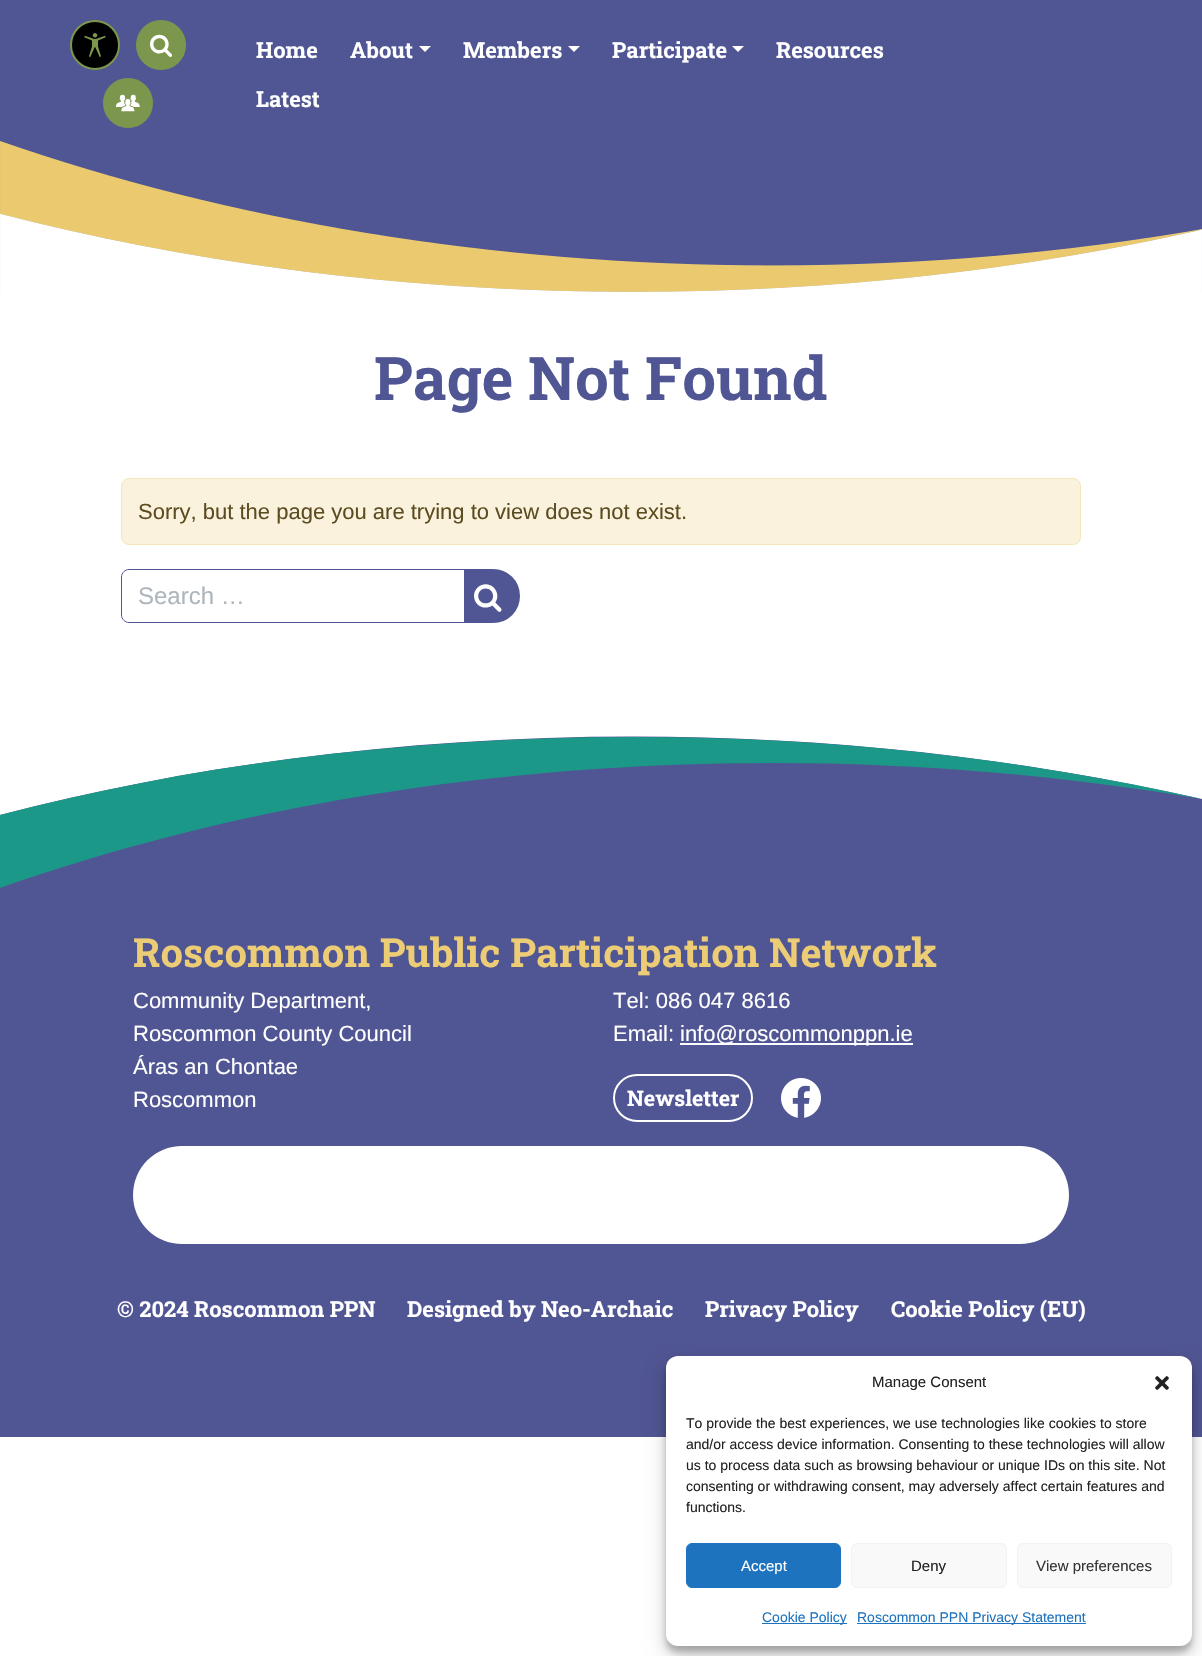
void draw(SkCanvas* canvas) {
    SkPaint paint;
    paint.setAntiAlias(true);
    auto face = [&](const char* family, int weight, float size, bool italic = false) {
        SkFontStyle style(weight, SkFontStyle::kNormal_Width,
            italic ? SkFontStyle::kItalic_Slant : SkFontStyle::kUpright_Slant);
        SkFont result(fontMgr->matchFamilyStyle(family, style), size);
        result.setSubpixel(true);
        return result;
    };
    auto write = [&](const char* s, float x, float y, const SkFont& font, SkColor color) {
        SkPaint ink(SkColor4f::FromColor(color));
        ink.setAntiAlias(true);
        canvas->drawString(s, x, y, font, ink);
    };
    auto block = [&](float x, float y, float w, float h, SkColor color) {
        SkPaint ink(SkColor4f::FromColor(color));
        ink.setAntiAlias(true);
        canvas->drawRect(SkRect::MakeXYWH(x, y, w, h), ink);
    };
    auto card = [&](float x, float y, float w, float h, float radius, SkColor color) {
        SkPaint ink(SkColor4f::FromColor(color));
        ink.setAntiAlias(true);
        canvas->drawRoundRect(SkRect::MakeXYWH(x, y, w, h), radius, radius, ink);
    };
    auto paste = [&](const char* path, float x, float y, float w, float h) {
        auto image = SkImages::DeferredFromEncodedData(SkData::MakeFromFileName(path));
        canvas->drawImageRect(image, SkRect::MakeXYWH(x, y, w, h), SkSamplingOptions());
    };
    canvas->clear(SK_ColorWHITE);
    block(0, 0, 1202, 293, SkColorSetRGB(80, 85, 147));
    paint.setColor(SK_ColorBLACK);
    canvas->drawCircle(95, 45, 24, paint);
    paint.setStyle(SkPaint::kStroke_Style);
    paint.setStrokeWidth(2);
    paint.setColor(SkColorSetRGB(124, 151, 77));
    canvas->drawCircle(95, 45, 24, paint);
    paste("pic1.png", 84, 33, 22, 24);
    paint.setStyle(SkPaint::kFill_Style);
    canvas->drawCircle(161, 45, 24, paint);
    paint.setStyle(SkPaint::kStroke_Style);
    canvas->drawCircle(161, 45, 24, paint);
    paste("pic2.png", 150, 34, 22, 23);
    paint.setStyle(SkPaint::kFill_Style);
    canvas->drawCircle(128, 103, 24, paint);
    paint.setStyle(SkPaint::kStroke_Style);
    canvas->drawCircle(128, 103, 24, paint);
    paste("pic3.png", 116, 94, 24, 18);
    auto kFont1 = face("Roboto Slab", 700, 22);
    write("Home", 256, 58, kFont1, SK_ColorWHITE);
    write("About", 350, 58, kFont1, SK_ColorWHITE);
    paint.setStyle(SkPaint::kFill_Style);
    paint.setColor(SK_ColorWHITE);
    canvas->drawPath(SkPathBuilder().moveTo(419, 46).lineTo(431, 46).lineTo(425, 52).close().detach(), paint);
    write("Members", 463, 58, kFont1, SK_ColorWHITE);
    canvas->drawPath(SkPathBuilder().moveTo(568, 46).lineTo(580, 46).lineTo(574, 52).close().detach(), paint);
    write("Participate", 612, 58, kFont1, SK_ColorWHITE);
    canvas->drawPath(SkPathBuilder().moveTo(732, 46).lineTo(744, 46).lineTo(738, 52).close().detach(), paint);
    write("Resources", 776, 58, kFont1, SK_ColorWHITE);
    write("Latest", 256, 107, kFont1, SK_ColorWHITE);
    paste("pic4.png", 0, 141, 1202, 152);
    auto kFont2 = face("Roboto Slab", 700, 60);
    write("Page Not Found", 374, 400, kFont2, SkColorSetRGB(80, 85, 147));
    paint.setColor(SkColorSetRGB(250, 242, 220));
    canvas->drawRoundRect(SkRect::MakeXYWH(121.5f, 478.5f, 959, 66), 7.5f, 7.5f, paint);
    paint.setStyle(SkPaint::kStroke_Style);
    paint.setStrokeWidth(1);
    paint.setColor(SkColorSetRGB(245, 229, 186));
    canvas->drawRoundRect(SkRect::MakeXYWH(121.5f, 478.5f, 959, 66), 7.5f, 7.5f, paint);
    auto kFont3 = face("Liberation Sans", 400, 22);
    write("Sorry, but the page you are trying to view does not exist.", 138, 519, kFont3, SkColorSetRGB(92, 76, 33));
    paint.setColor(SkColorSetRGB(80, 85, 147));
    canvas->drawPath(SkPathBuilder().moveTo(129, 569.5f).lineTo(464.5f, 569.5f).lineTo(464.5f, 622.5f).lineTo(129, 622.5f).cubicTo(125, 622.5f, 121.5f, 619, 121.5f, 615).lineTo(121.5f, 577).cubicTo(121.5f, 573, 125, 569.5f, 129, 569.5f).close().detach(), paint);
    auto kFont4 = face("Liberation Sans", 400, 24);
    write("Search …", 138, 604, kFont4, SkColorSetRGB(173, 181, 189));
    paint.setStyle(SkPaint::kFill_Style);
    canvas->drawPath(SkPathBuilder().moveTo(465, 570).lineTo(493, 570).cubicTo(507.5f, 570, 519, 581.5f, 519, 596).cubicTo(519, 610.5f, 507.5f, 622, 493, 622).lineTo(465, 622).close().detach(), paint);
    paint.setStyle(SkPaint::kStroke_Style);
    paint.setStrokeWidth(2);
    canvas->drawPath(SkPathBuilder().moveTo(465, 570).lineTo(493, 570).cubicTo(507.5f, 570, 519, 581.5f, 519, 596).cubicTo(519, 610.5f, 507.5f, 622, 493, 622).lineTo(465, 622).close().detach(), paint);
    paste("pic5.png", 474, 584, 28, 28);
    block(0, 736, 1202, 701, SkColorSetRGB(80, 85, 147));
    paint.setStyle(SkPaint::kFill_Style);
    paint.setColor(SK_ColorWHITE);
    canvas->drawPath(SkPathBuilder().moveTo(289, 759).cubicTo(189, 772, 92, 791, 0, 815).lineTo(0, 734).lineTo(1202, 734).lineTo(1202, 799).cubicTo(906, 732, 590, 719, 289, 759).close().detach(), paint);
    paint.setColor(SkColorSetRGB(27, 152, 135));
    canvas->drawPath(SkPathBuilder().moveTo(0, 888).lineTo(0, 815).cubicTo(92, 791, 189, 772, 289, 759).cubicTo(399, 745, 515, 737, 634, 737).cubicTo(834, 737, 1025, 759, 1202, 799).cubicTo(1066, 776, 922, 763, 773, 763).cubicTo(491, 763, 227, 808, 0, 888).close().detach(), paint);
    auto kFont5 = face("Roboto Slab", 700, 40);
    write("Roscommon Public Participation Network", 133, 967, kFont5, SkColorSetRGB(236, 204, 117));
    write("Community Department,", 133, 1008, kFont3, SK_ColorWHITE);
    write("Roscommon County Council", 133, 1041, kFont3, SK_ColorWHITE);
    write("Áras an Chontae", 133, 1074, kFont3, SK_ColorWHITE);
    write("Roscommon", 133, 1107, kFont3, SK_ColorWHITE);
    write("Tel: 086 047 8616", 613, 1008, kFont3, SK_ColorWHITE);
    write("Email:", 613, 1041, kFont3, SK_ColorWHITE);
    block(680, 1043, 233, 2, SK_ColorWHITE);
    write("info@roscommonppn.ie", 680, 1041, kFont3, SK_ColorWHITE);
    paint.setStyle(SkPaint::kStroke_Style);
    paint.setColor(SK_ColorWHITE);
    canvas->drawRoundRect(SkRect::MakeXYWH(614, 1075, 138, 46), 23, 23, paint);
    auto kFont6 = face("Roboto Slab", 700, 21.5f);
    write("Newsletter", 627, 1106, kFont6, SK_ColorWHITE);
    paste("pic6.png", 781, 1078, 40, 40);
    card(133, 1146, 936, 98, 49, SK_ColorWHITE);
    write("© 2024 Roscommon PPN", 117, 1317, kFont1, SK_ColorWHITE);
    write("Designed by Neo-Archaic", 407, 1317, kFont1, SK_ColorWHITE);
    write("Privacy Policy", 705, 1317, kFont1, SK_ColorWHITE);
    write("Cookie Policy (EU)", 891, 1317, kFont1, SK_ColorWHITE);
    paint.setStyle(SkPaint::kFill_Style);
    paint.setColor(SkColorSetARGB(59, 0, 0, 0));
    paint.setMaskFilter(SkMaskFilter::MakeBlur(kNormal_SkBlurStyle, 3));
    canvas->drawRoundRect(SkRect::MakeXYWH(666, 1362, 526, 290), 12, 12, paint);
    paint.setMaskFilter(nullptr);
    paint.setColor(SkColorSetARGB(48, 0, 0, 0));
    paint.setMaskFilter(SkMaskFilter::MakeBlur(kNormal_SkBlurStyle, 10));
    canvas->drawRoundRect(SkRect::MakeXYWH(666, 1366, 526, 290), 12, 12, paint);
    paint.setMaskFilter(nullptr);
    card(666, 1356, 526, 290, 12, SK_ColorWHITE);
    auto kFont7 = face("Liberation Sans", 400, 15);
    write("Manage Consent", 872, 1387, kFont7, SkColorSetRGB(34, 34, 34));
    paste("pic7.png", 1155, 1376, 14, 14);
    auto kFont8 = face("Liberation Sans", 400, 14);
    write("To provide the best experiences, we use technologies like cookies to store", 686, 1428, kFont8, SkColorSetRGB(34, 34, 34));
    write("and/or access device information. Consenting to these technologies will allow", 686, 1449, kFont8, SkColorSetRGB(34, 34, 34));
    write("us to process data such as browsing behaviour or unique IDs on this site. Not", 686, 1470, kFont8, SkColorSetRGB(34, 34, 34));
    write("consenting or withdrawing consent, may adversely affect certain features and", 686, 1491, kFont8, SkColorSetRGB(34, 34, 34));
    write("functions.", 686, 1512, kFont8, SkColorSetRGB(34, 34, 34));
    paint.setColor(SkColorSetRGB(30, 115, 190));
    canvas->drawRoundRect(SkRect::MakeXYWH(686.5f, 1543.5f, 154, 44), 5.5f, 5.5f, paint);
    paint.setStyle(SkPaint::kStroke_Style);
    paint.setStrokeWidth(1);
    canvas->drawRoundRect(SkRect::MakeXYWH(686.5f, 1543.5f, 154, 44), 5.5f, 5.5f, paint);
    write("Accept", 741, 1571, kFont7, SK_ColorWHITE);
    paint.setStyle(SkPaint::kFill_Style);
    paint.setColor(SkColorSetRGB(249, 249, 249));
    canvas->drawRoundRect(SkRect::MakeXYWH(851.5f, 1543.5f, 155, 44), 5.5f, 5.5f, paint);
    paint.setStyle(SkPaint::kStroke_Style);
    paint.setColor(SkColorSetRGB(242, 242, 242));
    canvas->drawRoundRect(SkRect::MakeXYWH(851.5f, 1543.5f, 155, 44), 5.5f, 5.5f, paint);
    write("Deny", 911, 1571, kFont7, SkColorSetRGB(34, 34, 34));
    paint.setStyle(SkPaint::kFill_Style);
    paint.setColor(SkColorSetRGB(249, 249, 249));
    canvas->drawRoundRect(SkRect::MakeXYWH(1017.5f, 1543.5f, 154, 44), 5.5f, 5.5f, paint);
    paint.setStyle(SkPaint::kStroke_Style);
    paint.setColor(SkColorSetRGB(242, 242, 242));
    canvas->drawRoundRect(SkRect::MakeXYWH(1017.5f, 1543.5f, 154, 44), 5.5f, 5.5f, paint);
    write("View preferences", 1036, 1571, kFont7, SkColorSetRGB(51, 51, 51));
    block(762, 1623, 85, 1, SkColorSetRGB(30, 115, 190));
    write("Cookie Policy", 762, 1622, kFont8, SkColorSetRGB(30, 115, 190));
    block(857, 1623, 229, 1, SkColorSetRGB(30, 115, 190));
    write("Roscommon PPN Privacy Statement", 857, 1622, kFont8, SkColorSetRGB(30, 115, 190));
}
